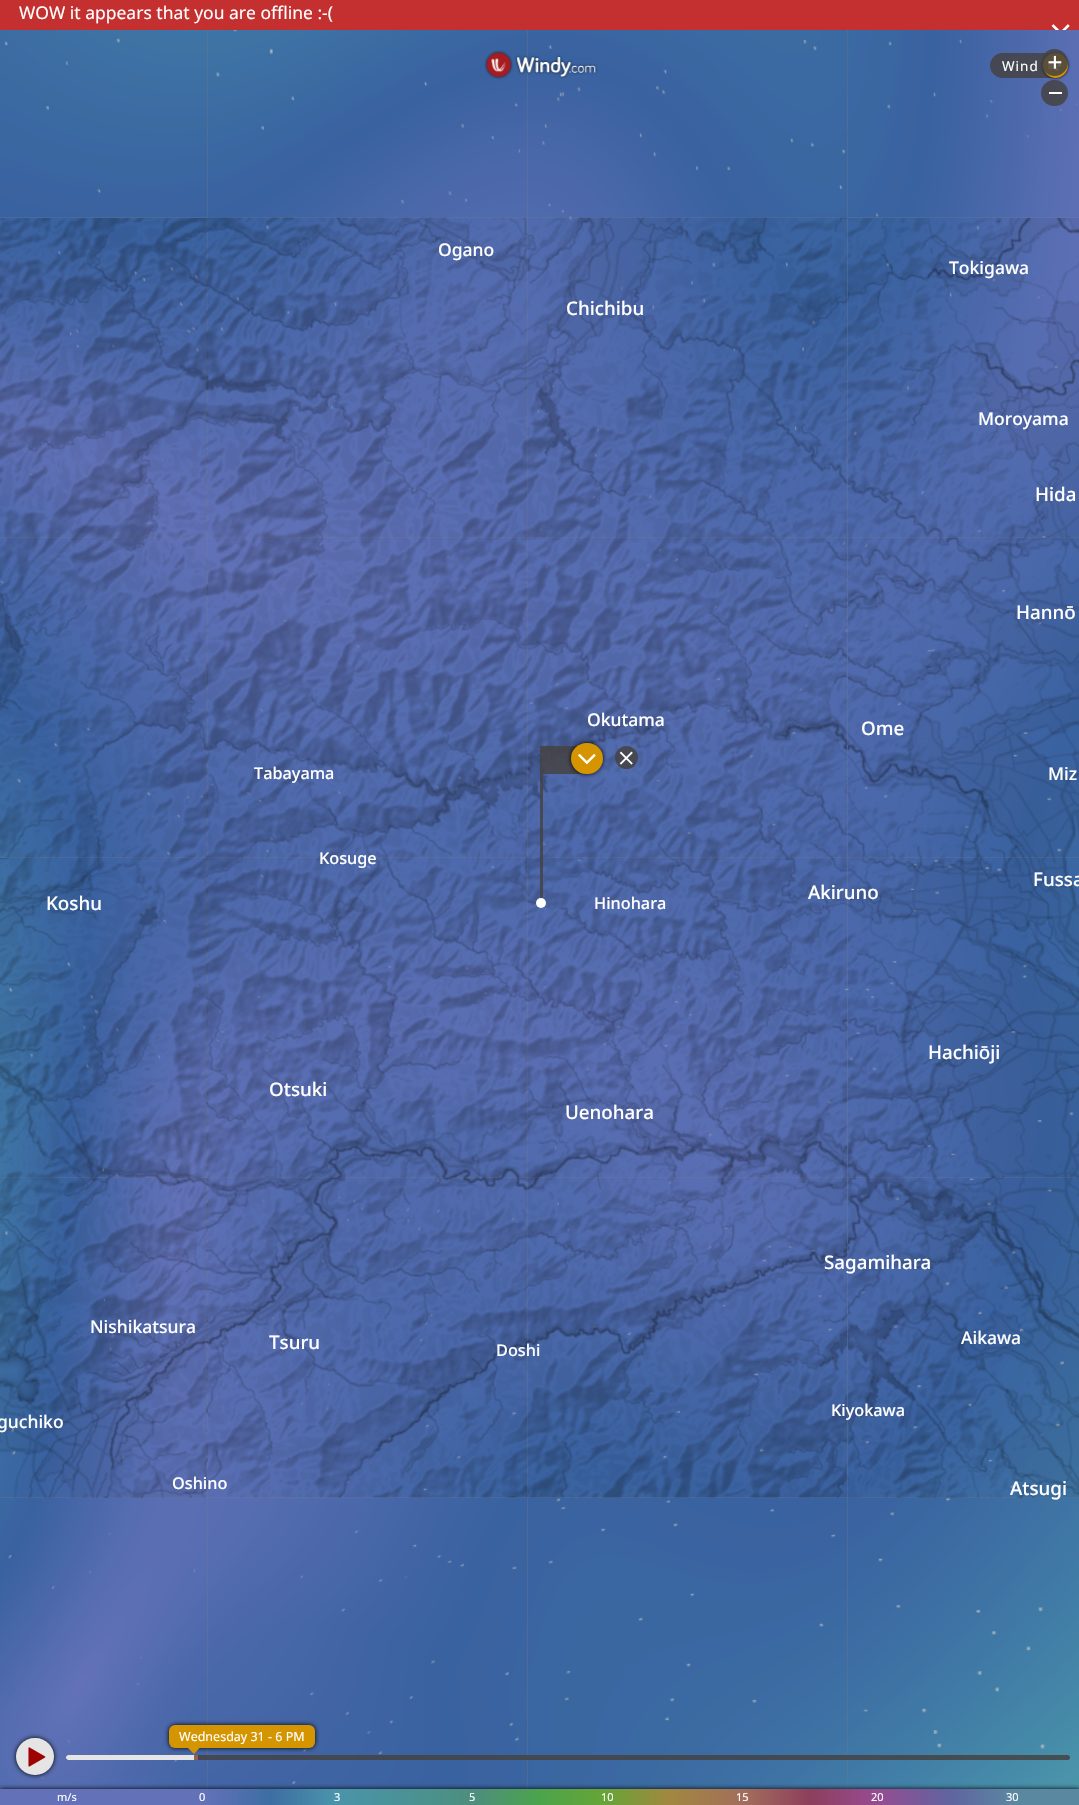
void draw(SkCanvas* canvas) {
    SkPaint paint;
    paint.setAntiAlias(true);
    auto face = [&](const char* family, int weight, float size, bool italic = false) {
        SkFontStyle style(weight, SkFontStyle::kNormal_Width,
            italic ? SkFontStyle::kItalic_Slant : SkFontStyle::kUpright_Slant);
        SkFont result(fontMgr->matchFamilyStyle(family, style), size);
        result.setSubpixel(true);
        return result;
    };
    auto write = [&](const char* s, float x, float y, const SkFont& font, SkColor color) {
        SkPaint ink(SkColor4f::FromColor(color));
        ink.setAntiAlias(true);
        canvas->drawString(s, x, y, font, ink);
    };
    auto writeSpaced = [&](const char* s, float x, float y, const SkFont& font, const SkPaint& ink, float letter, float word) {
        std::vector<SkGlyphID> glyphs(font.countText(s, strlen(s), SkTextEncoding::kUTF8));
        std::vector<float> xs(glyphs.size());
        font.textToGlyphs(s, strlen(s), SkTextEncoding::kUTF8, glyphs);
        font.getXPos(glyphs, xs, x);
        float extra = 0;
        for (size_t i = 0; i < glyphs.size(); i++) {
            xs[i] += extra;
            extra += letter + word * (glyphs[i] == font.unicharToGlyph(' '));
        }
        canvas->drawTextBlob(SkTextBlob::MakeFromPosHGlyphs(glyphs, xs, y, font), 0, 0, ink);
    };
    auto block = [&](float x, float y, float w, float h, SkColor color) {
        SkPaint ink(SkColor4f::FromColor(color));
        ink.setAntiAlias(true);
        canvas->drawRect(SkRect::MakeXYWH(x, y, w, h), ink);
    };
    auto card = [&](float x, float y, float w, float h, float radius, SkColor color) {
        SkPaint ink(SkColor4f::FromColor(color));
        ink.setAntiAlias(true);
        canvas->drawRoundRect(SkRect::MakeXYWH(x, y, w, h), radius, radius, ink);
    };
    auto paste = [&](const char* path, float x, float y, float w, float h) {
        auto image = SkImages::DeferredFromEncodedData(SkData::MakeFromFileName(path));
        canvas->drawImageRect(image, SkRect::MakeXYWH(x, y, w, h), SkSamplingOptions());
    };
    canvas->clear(SkColorSetRGB(128, 128, 128));
    block(0, 0, 1079, 30, SkColorSetRGB(196, 47, 47));
    auto kFont1 = face("Noto Sans", 400, 17.5f);
    write("WOW it appears that you are offline :-(", 19, 19, kFont1, SK_ColorWHITE);
    paste("pic1.png", 1051, 24, 19, 6);
    paste("pic15.png", 207, 537, 321, 321);
    paste("pic16.png", 527, 537, 321, 321);
    paste("pic11.png", 207, 217, 321, 321);
    paste("pic19.png", 207, 857, 321, 321);
    paste("pic14.png", 0, 537, 208, 321);
    paste("pic10.png", 0, 217, 208, 321);
    paste("pic12.png", 527, 217, 321, 321);
    paste("pic7.png", 207, 30, 321, 188);
    paste("pic6.png", 0, 30, 208, 188);
    paste("pic20.png", 527, 857, 321, 321);
    paste("pic17.png", 847, 537, 232, 321);
    paste("pic13.png", 847, 217, 232, 321);
    paste("pic8.png", 527, 30, 321, 188);
    paste("pic9.png", 847, 30, 232, 188);
    paste("pic18.png", 0, 857, 208, 321);
    paste("pic21.png", 847, 857, 232, 321);
    paste("pic23.png", 207, 1177, 321, 321);
    paste("pic22.png", 0, 1177, 208, 321);
    paste("pic24.png", 527, 1177, 321, 321);
    paste("pic25.png", 847, 1177, 232, 321);
    paste("pic27.png", 207, 1497, 321, 292);
    paste("pic26.png", 0, 1497, 208, 292);
    paste("pic28.png", 527, 1497, 321, 292);
    paste("pic29.png", 847, 1497, 232, 292);
    paste("pic30.png", 0, 30, 1078, 1755);
    paste("pic2.png", 484, 50, 29, 29);
    paste("pic3.png", 515, 55, 83, 24);
    card(990, 53, 78, 25, 12.5f, SkColorSetARGB(214, 68, 65, 65));
    auto kFont2 = face("Noto Sans", 400, 13.5f);
    paint.setColor(SK_ColorWHITE);
    writeSpaced("Wind", 1002, 71, kFont2, paint, 1, 0);
    paint.setColor(SK_ColorBLACK);
    paint.setMaskFilter(SkMaskFilter::MakeBlur(kNormal_SkBlurStyle, 1.5f));
    canvas->drawRoundRect(SkRect::MakeXYWH(1043, 53, 25, 25), 12.5f, 12.5f, paint);
    paint.setMaskFilter(nullptr);
    paint.setColor(SkColorSetRGB(212, 149, 0));
    canvas->drawCircle(1055.5f, 65.5f, 12.5f, paint);
    paste("pic4.png", 1047, 61, 15, 10);
    paint.setColor(SkColorSetARGB(214, 68, 65, 65));
    canvas->drawCircle(1054.5f, 62.5f, 13.5f, paint);
    paste("pic5.png", 1048, 55, 14, 14);
    card(1041, 80, 27, 26, 13, SkColorSetARGB(214, 68, 65, 65));
    block(1049, 92, 13, 2, SK_ColorWHITE);
    paste("pic36.png", 207, 537, 321, 321);
    paste("pic37.png", 527, 537, 321, 321);
    paste("pic32.png", 207, 217, 321, 321);
    paste("pic31.png", 0, 218, 208, 320);
    paste("pic33.png", 527, 217, 321, 321);
    paste("pic34.png", 848, 218, 231, 320);
    paste("pic40.png", 207, 857, 321, 321);
    paste("pic35.png", 0, 538, 208, 320);
    paste("pic38.png", 848, 538, 231, 320);
    paste("pic39.png", 0, 858, 208, 320);
    paste("pic41.png", 527, 857, 321, 321);
    paste("pic42.png", 848, 858, 231, 320);
    paste("pic44.png", 207, 1177, 321, 321);
    paste("pic43.png", 0, 1178, 208, 320);
    paste("pic45.png", 527, 1177, 321, 321);
    paste("pic46.png", 848, 1178, 231, 320);
    auto kFont3 = face("Noto Sans", 500, 17.5f);
    write("Ogano", 438, 256, kFont3, SK_ColorWHITE);
    auto kFont4 = face("Noto Sans", 500, 18.75f);
    write("Chichibu", 566, 315, kFont4, SK_ColorWHITE);
    write("Tokigawa", 949, 274, kFont3, SK_ColorWHITE);
    write("Moroyama", 978, 425, kFont3, SK_ColorWHITE);
    write("Hida", 1035, 501, kFont4, SK_ColorWHITE);
    write("Okutama", 587, 726, kFont3, SK_ColorWHITE);
    write("Hannō", 1016, 619, kFont4, SK_ColorWHITE);
    write("Ome", 861, 735, kFont4, SK_ColorWHITE);
    write("Miz", 1048, 780, kFont3, SK_ColorWHITE);
    auto kFont5 = face("Noto Sans", 500, 16.25f);
    write("Tabayama", 254, 779, kFont5, SK_ColorWHITE);
    write("Koshu", 46, 910, kFont4, SK_ColorWHITE);
    write("Kosuge", 319, 864, kFont5, SK_ColorWHITE);
    write("Otsuki", 269, 1096, kFont4, SK_ColorWHITE);
    write("Akiruno", 808, 899, kFont4, SK_ColorWHITE);
    write("Hinohara", 594, 909, kFont5, SK_ColorWHITE);
    write("Uenohara", 565, 1119, kFont4, SK_ColorWHITE);
    write("Fussa", 1033, 886, kFont4, SK_ColorWHITE);
    write("Hachiōji", 928, 1059, kFont4, SK_ColorWHITE);
    write("Nishikatsura", 90, 1333, kFont3, SK_ColorWHITE);
    write("guchiko", -3, 1428, kFont3, SK_ColorWHITE);
    write("Oshino", 172, 1489, kFont5, SK_ColorWHITE);
    write("Tsuru", 269, 1349, kFont4, SK_ColorWHITE);
    write("Doshi", 496, 1356, kFont5, SK_ColorWHITE);
    write("Sagamihara", 824, 1269, kFont4, SK_ColorWHITE);
    write("Aikawa", 961, 1344, kFont3, SK_ColorWHITE);
    write("Kiyokawa", 831, 1416, kFont5, SK_ColorWHITE);
    write("Atsugi", 1010, 1495, kFont4, SK_ColorWHITE);
    block(540, 746, 3, 157, SkColorSetARGB(214, 68, 65, 65));
    paint.setColor(SK_ColorWHITE);
    canvas->drawCircle(541, 903, 5, paint);
    paint.setColor(SkColorSetARGB(214, 68, 65, 65));
    canvas->drawPath(SkPathBuilder().moveTo(543, 746).lineTo(579, 746).cubicTo(586.5f, 746, 593, 752.5f, 593, 760).cubicTo(593, 767.5f, 586.5f, 774, 579, 774).lineTo(543, 774).close().detach(), paint);
    paint.setColor(SK_ColorBLACK);
    paint.setMaskFilter(SkMaskFilter::MakeBlur(kNormal_SkBlurStyle, 2.5f));
    canvas->drawRoundRect(SkRect::MakeXYWH(571, 743, 32, 31), 15.5f, 15.5f, paint);
    paint.setMaskFilter(nullptr);
    card(571, 743, 32, 31, 15.5f, SkColorSetRGB(212, 149, 0));
    paste("pic47.png", 578, 754, 18, 11);
    paint.setColor(SkColorSetARGB(214, 68, 65, 65));
    canvas->drawCircle(626.5f, 757.5f, 11.5f, paint);
    paste("pic48.png", 619, 751, 14, 14);
    paint.setColor(SK_ColorBLACK);
    paint.setMaskFilter(SkMaskFilter::MakeBlur(kNormal_SkBlurStyle, 2.5f));
    canvas->drawRoundRect(SkRect::MakeXYWH(16, 1738, 38, 37), 18.5f, 18.5f, paint);
    paint.setMaskFilter(nullptr);
    card(16, 1738, 38, 37, 18.5f, SkColorSetRGB(229, 229, 229));
    paste("pic49.png", 28, 1747, 18, 20);
    paint.setMaskFilter(SkMaskFilter::MakeBlur(kNormal_SkBlurStyle, 2.5f));
    canvas->drawRoundRect(SkRect::MakeXYWH(169, 1725, 146, 23), 6, 6, paint);
    paint.setMaskFilter(nullptr);
    card(169, 1725, 146, 23, 6, SkColorSetRGB(212, 149, 0));
    auto kFont6 = face("Noto Sans", 400, 12.5f);
    write("Wednesday 31 - 6 PM", 179, 1741, kFont6, SK_ColorWHITE);
    paint.setColor(SkColorSetRGB(212, 149, 0));
    canvas->drawPath(SkPathBuilder().moveTo(187.5f, 1747.5f).lineTo(200, 1747.5f).lineTo(194, 1754).close().detach(), paint);
    card(66, 1755, 1004, 5, 2.5f, SkColorSetARGB(214, 68, 65, 65));
    paint.setColor(SkColorSetRGB(229, 229, 229));
    canvas->drawPath(SkPathBuilder().moveTo(68.5f, 1755).lineTo(194, 1755).lineTo(194, 1760).lineTo(68.5f, 1760).cubicTo(67, 1760, 66, 1759, 66, 1757.5f).cubicTo(66, 1756, 67, 1755, 68.5f, 1755).close().detach(), paint);
    block(194, 1755, 4, 5, SkColorSetRGB(148, 96, 81));
    paint.setColor(SK_ColorBLACK);
    paint.setMaskFilter(SkMaskFilter::MakeBlur(kNormal_SkBlurStyle, 2.5f));
    canvas->drawRect(SkRect::MakeXYWH(0, 1789, 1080, 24), paint);
    paint.setMaskFilter(nullptr);
    {
        const SkColor colors[] = {SkColorSetRGB(98, 113, 184), SkColorSetRGB(98, 113, 184), SkColorSetRGB(61, 110, 163), SkColorSetRGB(74, 148, 170), SkColorSetRGB(74, 146, 148), SkColorSetRGB(77, 142, 124), SkColorSetRGB(76, 164, 76), SkColorSetRGB(103, 164, 54), SkColorSetRGB(162, 135, 64), SkColorSetRGB(162, 109, 92), SkColorSetRGB(141, 63, 92), SkColorSetRGB(151, 75, 145), SkColorSetRGB(95, 100, 160), SkColorSetRGB(91, 136, 161), SkColorSetRGB(91, 136, 161)};
        const float stops[] = {0, 0.19f, 0.25f, 0.31f, 0.38f, 0.44f, 0.5f, 0.56f, 0.62f, 0.69f, 0.75f, 0.81f, 0.88f, 0.94f, 1};
        const SkPoint ends[] = {{0, 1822}, {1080, 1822}};
        paint.setShader(SkGradientShader::MakeLinear(ends, colors, stops, 15, SkTileMode::kClamp));
        paint.setAlpha(255);
    }
    canvas->drawRect(SkRect::MakeXYWH(0, 1789, 1079, 16), paint);
    auto kFont7 = face("Noto Sans", 400, 11);
    write("m/s", 57, 1801, kFont7, SK_ColorWHITE);
    write("0", 199, 1801, kFont7, SK_ColorWHITE);
    write("3", 334, 1801, kFont7, SK_ColorWHITE);
    write("5", 469, 1801, kFont7, SK_ColorWHITE);
    write("10", 601, 1801, kFont7, SK_ColorWHITE);
    write("15", 736, 1801, kFont7, SK_ColorWHITE);
    write("20", 871, 1801, kFont7, SK_ColorWHITE);
    write("30", 1006, 1801, kFont7, SK_ColorWHITE);
}
